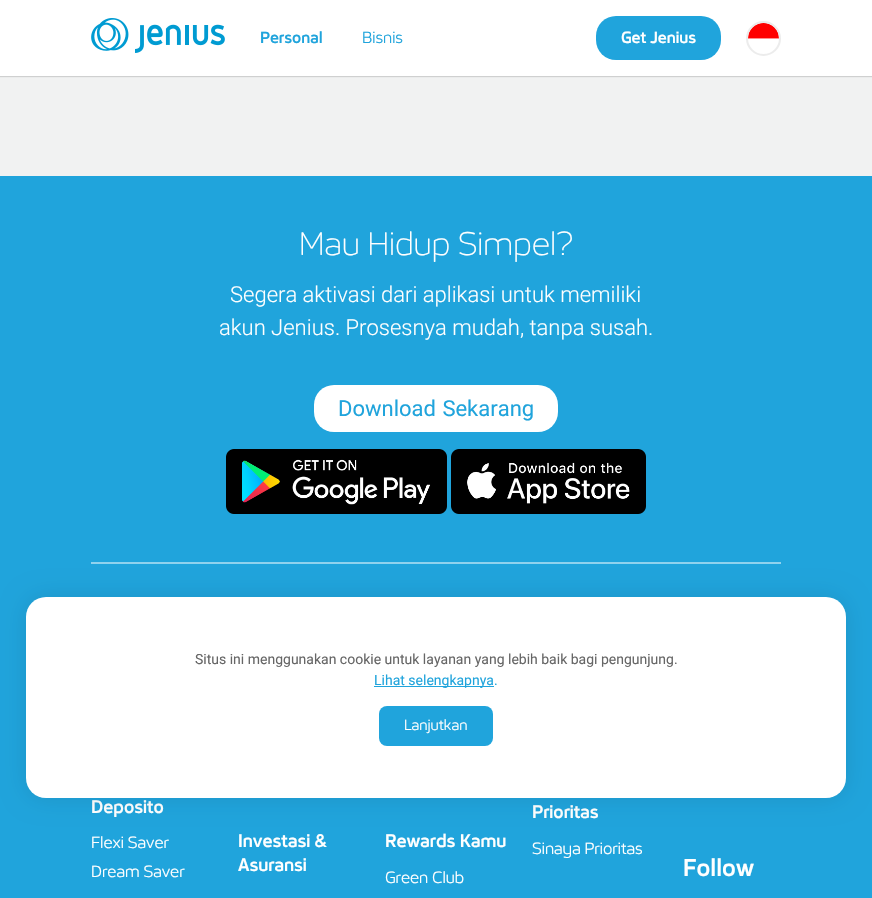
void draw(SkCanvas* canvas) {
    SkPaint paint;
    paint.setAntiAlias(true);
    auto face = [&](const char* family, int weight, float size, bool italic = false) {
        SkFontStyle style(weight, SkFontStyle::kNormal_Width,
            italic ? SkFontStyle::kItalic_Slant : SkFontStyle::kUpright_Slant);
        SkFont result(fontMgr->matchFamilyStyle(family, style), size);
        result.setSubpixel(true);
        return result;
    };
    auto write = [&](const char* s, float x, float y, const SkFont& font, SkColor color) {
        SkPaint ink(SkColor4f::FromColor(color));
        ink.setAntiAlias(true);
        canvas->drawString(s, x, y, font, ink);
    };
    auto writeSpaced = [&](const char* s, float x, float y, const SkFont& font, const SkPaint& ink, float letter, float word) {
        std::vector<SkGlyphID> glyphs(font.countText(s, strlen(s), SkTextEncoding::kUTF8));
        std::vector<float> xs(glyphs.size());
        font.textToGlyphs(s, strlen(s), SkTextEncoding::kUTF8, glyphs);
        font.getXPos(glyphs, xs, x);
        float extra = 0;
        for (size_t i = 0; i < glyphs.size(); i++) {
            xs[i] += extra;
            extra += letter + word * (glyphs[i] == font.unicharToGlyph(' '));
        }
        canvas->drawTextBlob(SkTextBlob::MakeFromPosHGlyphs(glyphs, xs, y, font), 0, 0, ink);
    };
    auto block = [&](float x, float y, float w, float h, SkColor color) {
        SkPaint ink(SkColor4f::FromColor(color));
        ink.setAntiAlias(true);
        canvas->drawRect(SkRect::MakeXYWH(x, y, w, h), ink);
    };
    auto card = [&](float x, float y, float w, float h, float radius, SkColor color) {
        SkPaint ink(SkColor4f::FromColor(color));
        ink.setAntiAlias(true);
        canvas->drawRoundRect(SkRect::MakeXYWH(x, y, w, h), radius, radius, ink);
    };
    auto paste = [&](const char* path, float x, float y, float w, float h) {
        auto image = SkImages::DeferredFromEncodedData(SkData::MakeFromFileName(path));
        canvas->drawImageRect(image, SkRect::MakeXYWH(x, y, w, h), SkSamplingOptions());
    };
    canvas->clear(SkColorSetRGB(241, 242, 242));
    paint.setColor(SkColorSetARGB(128, 174, 174, 174));
    paint.setMaskFilter(SkMaskFilter::MakeBlur(kNormal_SkBlurStyle, 0.5f));
    canvas->drawRect(SkRect::MakeXYWH(-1, -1, 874, 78), paint);
    paint.setMaskFilter(nullptr);
    block(0, 0, 872, 76, SK_ColorWHITE);
    paste("pic1.png", 91, 18, 134, 35);
    auto kFont1 = face("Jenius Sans", 700, 16);
    write("Personal", 260, 43, kFont1, SkColorSetRGB(32, 164, 220));
    auto kFont2 = face("Jenius Sans", 400, 16);
    write("Bisnis", 362, 43, kFont2, SkColorSetRGB(32, 164, 220));
    card(596, 16, 125, 44, 20, SkColorSetRGB(32, 164, 220));
    write("Get Jenius", 621, 43, kFont1, SK_ColorWHITE);
    paint.setStyle(SkPaint::kStroke_Style);
    paint.setStrokeWidth(2);
    paint.setColor(SkColorSetRGB(236, 236, 236));
    canvas->drawCircle(763.5f, 38.5f, 16.5f, paint);
    paste("pic2.png", 748, 23, 31, 16);
    block(0, 176, 872, 722, SkColorSetRGB(32, 164, 220));
    auto kFont3 = face("Jenius Sans", 300, 32);
    write("Mau Hidup Simpel?", 299, 255, kFont3, SK_ColorWHITE);
    auto kFont4 = face("Roboto", 300, 22);
    write("Segera aktivasi dari aplikasi untuk memiliki", 230, 302, kFont4, SK_ColorWHITE);
    write("akun Jenius. Prosesnya mudah, tanpa susah.", 219, 335, kFont4, SK_ColorWHITE);
    card(314, 385, 244, 47, 20, SK_ColorWHITE);
    auto kFont5 = face("Roboto", 400, 22);
    paint.setStyle(SkPaint::kFill_Style);
    paint.setColor(SkColorSetRGB(32, 164, 220));
    writeSpaced("Download Sekarang", 338, 416, kFont5, paint, 0, 1);
    paste("pic3.png", 226, 449, 221, 65);
    paste("pic4.png", 451, 449, 195, 65);
    block(91, 562, 690, 2, SkColorSetRGB(144, 210, 238));
    auto kFont6 = face("Jenius Sans", 700, 18);
    write("Deposito", 91, 813, kFont6, SK_ColorWHITE);
    write("Flexi Saver", 91, 848, kFont2, SK_ColorWHITE);
    write("Dream Saver", 91, 877, kFont2, SK_ColorWHITE);
    write("Investasi &", 238, 847, kFont6, SK_ColorWHITE);
    write("Asuransi", 238, 871, kFont6, SK_ColorWHITE);
    write("Rewards Kamu", 385, 847, kFont6, SK_ColorWHITE);
    write("Green Club", 385, 883, kFont2, SK_ColorWHITE);
    write("Prioritas", 532, 818, kFont6, SK_ColorWHITE);
    write("Sinaya Prioritas", 532, 854, kFont2, SK_ColorWHITE);
    auto kFont7 = face("Jenius Sans", 700, 24);
    write("Follow", 683, 876, kFont7, SK_ColorWHITE);
    paint.setColor(SkColorSetARGB(26, 0, 0, 0));
    paint.setMaskFilter(SkMaskFilter::MakeBlur(kNormal_SkBlurStyle, 12.5f));
    canvas->drawRoundRect(SkRect::MakeXYWH(26, 597, 820, 201), 20, 20, paint);
    paint.setMaskFilter(nullptr);
    card(26, 597, 820, 201, 20, SK_ColorWHITE);
    auto kFont8 = face("Roboto", 400, 14);
    write("Situs ini menggunakan cookie untuk layanan yang lebih baik bagi pengunjung.", 195, 664, kFont8, SkColorSetRGB(102, 102, 102));
    block(374, 686, 120, 1, SkColorSetRGB(32, 164, 220));
    write("Lihat selengkapnya.", 374, 685, kFont8, SkColorSetRGB(32, 164, 220));
    card(379, 706, 114, 40, 8, SkColorSetRGB(32, 164, 220));
    auto kFont9 = face("Jenius Sans", 400, 14.5f);
    write("Lanjutkan", 404, 730, kFont9, SK_ColorWHITE);
}
